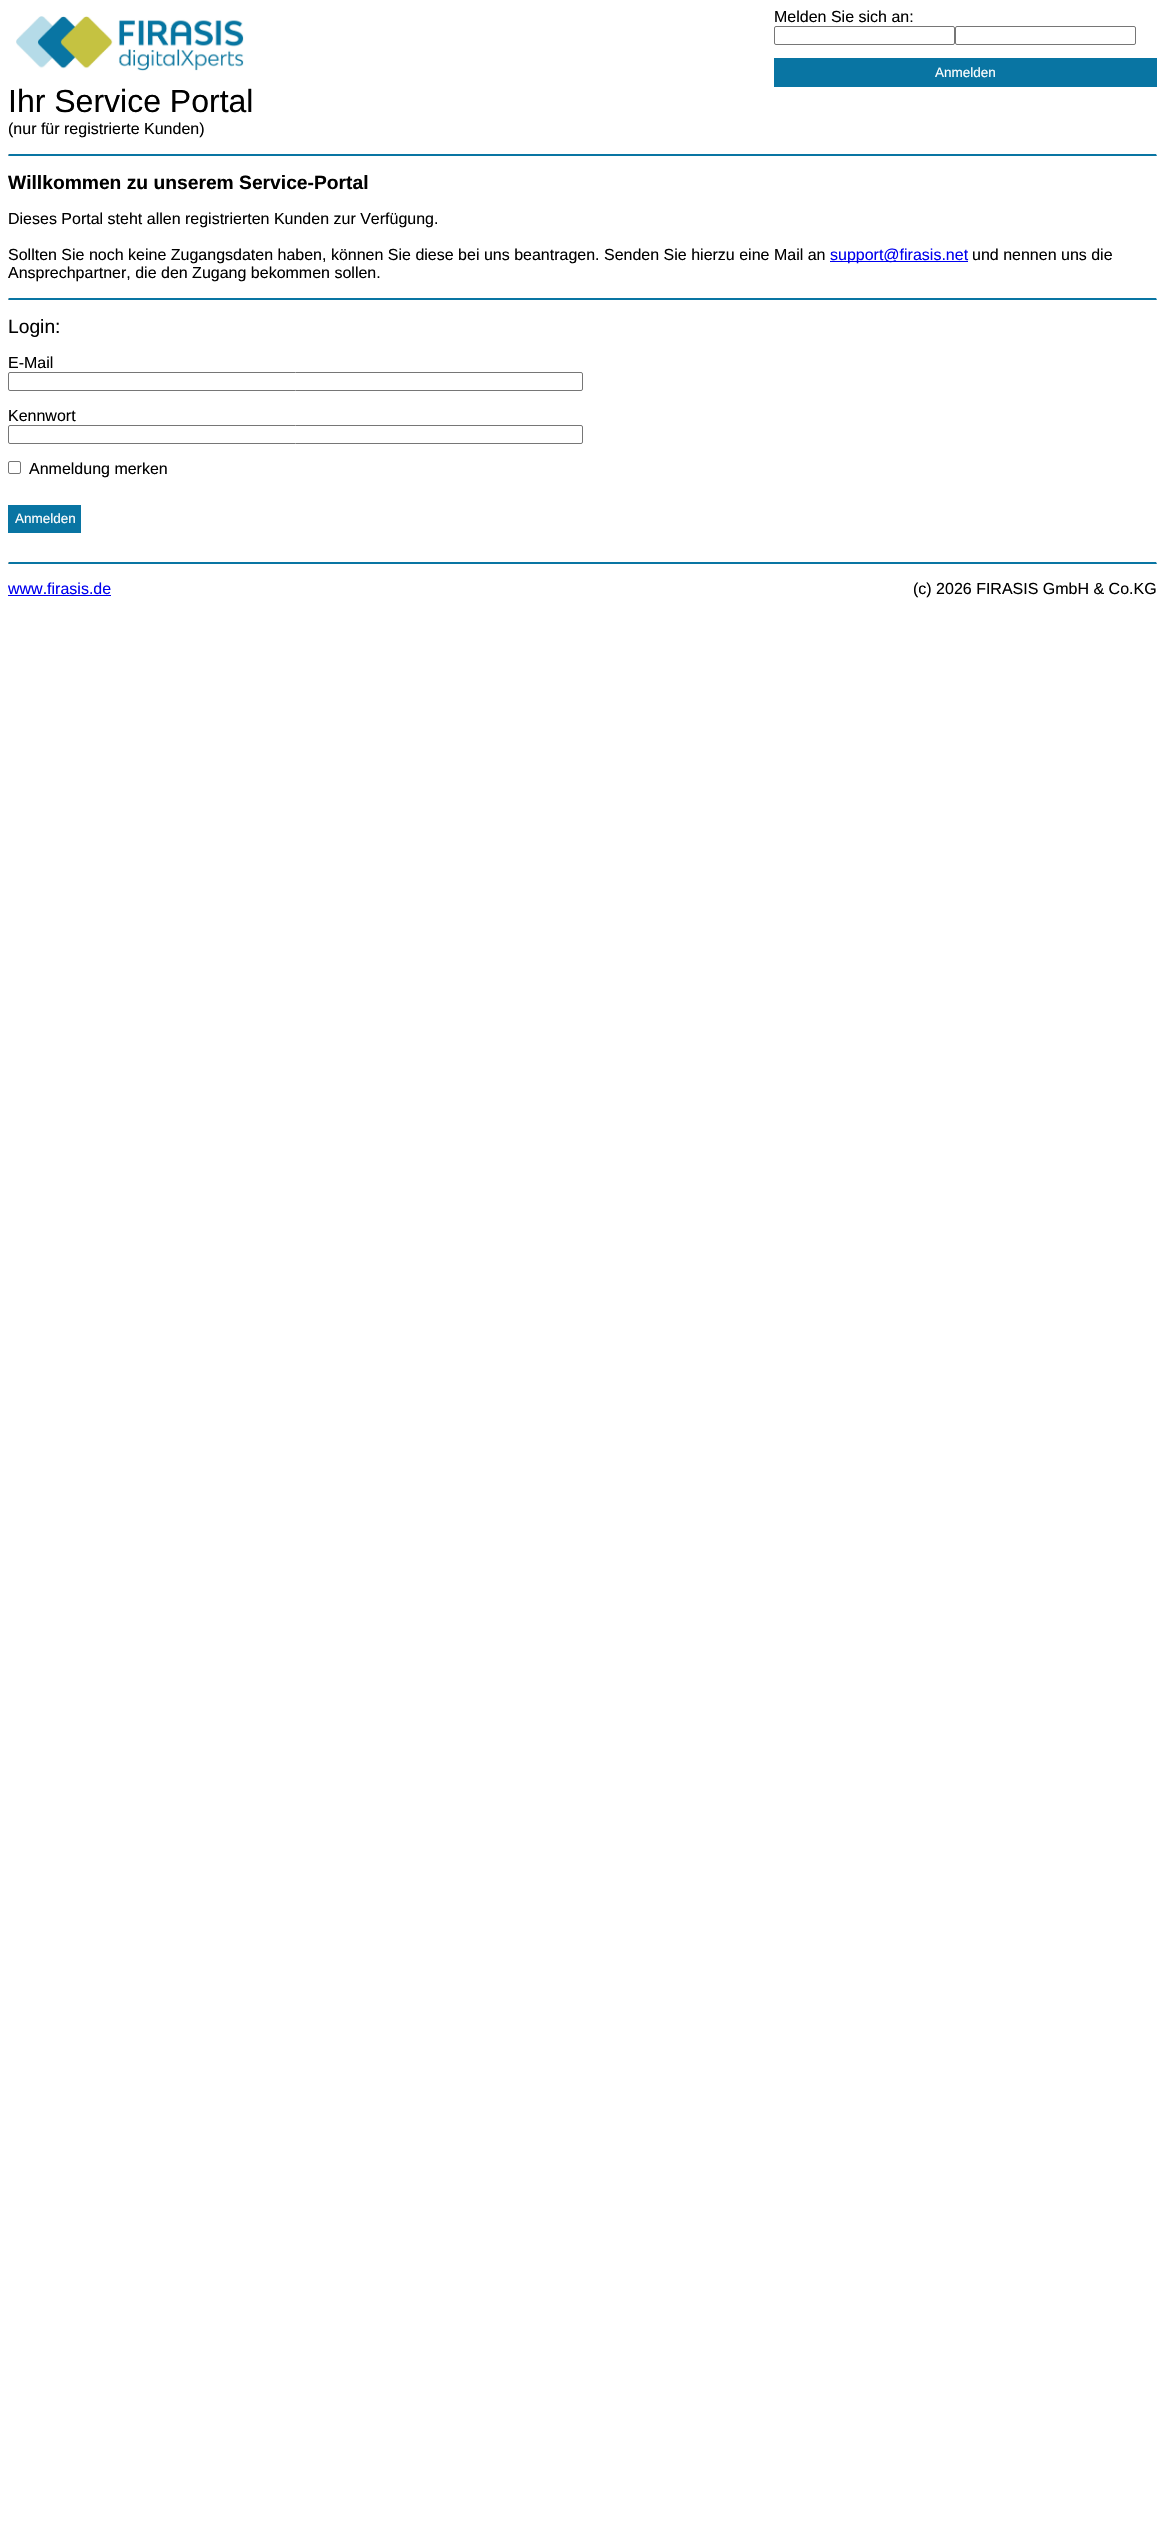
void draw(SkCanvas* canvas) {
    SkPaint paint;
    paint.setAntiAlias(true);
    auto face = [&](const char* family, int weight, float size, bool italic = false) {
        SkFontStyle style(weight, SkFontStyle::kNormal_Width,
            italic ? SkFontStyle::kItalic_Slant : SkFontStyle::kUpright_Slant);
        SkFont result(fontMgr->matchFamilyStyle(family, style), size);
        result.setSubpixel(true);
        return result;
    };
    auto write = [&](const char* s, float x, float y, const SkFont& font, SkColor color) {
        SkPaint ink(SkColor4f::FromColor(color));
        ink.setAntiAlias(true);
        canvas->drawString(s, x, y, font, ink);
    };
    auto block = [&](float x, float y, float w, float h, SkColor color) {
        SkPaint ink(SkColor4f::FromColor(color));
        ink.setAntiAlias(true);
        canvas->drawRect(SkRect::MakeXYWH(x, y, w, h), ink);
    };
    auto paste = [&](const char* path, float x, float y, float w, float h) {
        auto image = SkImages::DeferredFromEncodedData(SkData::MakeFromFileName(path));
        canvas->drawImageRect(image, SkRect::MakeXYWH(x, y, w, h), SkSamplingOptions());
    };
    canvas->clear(SK_ColorWHITE);
    auto kFont1 = face("Liberation Sans", 400, 16);
    write("Melden Sie sich an:", 774, 22, kFont1, SK_ColorBLACK);
    paint.setStyle(SkPaint::kStroke_Style);
    paint.setStrokeWidth(1);
    paint.setColor(SkColorSetRGB(118, 118, 118));
    canvas->drawRoundRect(SkRect::MakeXYWH(774.5f, 26.5f, 180, 18), 1.5f, 1.5f, paint);
    canvas->drawRoundRect(SkRect::MakeXYWH(955.5f, 26.5f, 180, 18), 1.5f, 1.5f, paint);
    block(774, 58, 383, 29, SkColorSetRGB(9, 117, 163));
    auto kFont2 = face("Liberation Sans", 400, 13.5f);
    write("Anmelden", 935, 77, kFont2, SK_ColorWHITE);
    paste("pic1.png", 16, 16, 228, 55);
    auto kFont3 = face("Liberation Sans", 400, 32);
    write("Ihr Service Portal", 8, 112, kFont3, SK_ColorBLACK);
    write("(nur für registrierte Kunden)", 8, 134, kFont1, SK_ColorBLACK);
    paint.setStyle(SkPaint::kFill_Style);
    paint.setColor(SkColorSetRGB(238, 238, 238));
    canvas->drawPath(SkPathBuilder().moveTo(1157, 154).lineTo(1157, 156).lineTo(1156, 154).close().detach(), paint);
    paint.setColor(SkColorSetRGB(9, 117, 163));
    canvas->drawPath(SkPathBuilder().moveTo(1157, 156).lineTo(8, 156).lineTo(9, 154).lineTo(1156, 154).close().detach(), paint);
    paint.setColor(SkColorSetRGB(159, 159, 159));
    canvas->drawPath(SkPathBuilder().moveTo(8, 156).lineTo(8, 154).lineTo(9, 154).close().detach(), paint);
    auto kFont4 = face("Liberation Sans", 700, 19.25f);
    write("Willkommen zu unserem Service-Portal", 8, 189, kFont4, SK_ColorBLACK);
    write("Dieses Portal steht allen registrierten Kunden zur Verfügung.", 8, 224, kFont1, SK_ColorBLACK);
    write("Sollten Sie noch keine Zugangsdaten haben, können Sie diese bei uns beantragen. Senden Sie hierzu eine Mail an", 8, 260, kFont1, SK_ColorBLACK);
    block(830, 261, 138, 1, SkColorSetRGB(0, 0, 238));
    write("support@firasis.net", 830, 260, kFont1, SkColorSetRGB(0, 0, 238));
    write("und nennen uns die", 972, 260, kFont1, SK_ColorBLACK);
    write("Ansprechpartner, die den Zugang bekommen sollen.", 8, 278, kFont1, SK_ColorBLACK);
    paint.setColor(SkColorSetRGB(238, 238, 238));
    canvas->drawPath(SkPathBuilder().moveTo(1157, 298).lineTo(1157, 300).lineTo(1156, 298).close().detach(), paint);
    paint.setColor(SkColorSetRGB(9, 117, 163));
    canvas->drawPath(SkPathBuilder().moveTo(1157, 300).lineTo(8, 300).lineTo(9, 298).lineTo(1156, 298).close().detach(), paint);
    paint.setColor(SkColorSetRGB(159, 159, 159));
    canvas->drawPath(SkPathBuilder().moveTo(8, 300).lineTo(8, 298).lineTo(9, 298).close().detach(), paint);
    auto kFont5 = face("Liberation Sans", 400, 19.25f);
    write("Login:", 8, 333, kFont5, SK_ColorBLACK);
    write("E-Mail", 8, 368, kFont1, SK_ColorBLACK);
    paint.setStyle(SkPaint::kStroke_Style);
    paint.setColor(SkColorSetRGB(118, 118, 118));
    canvas->drawRoundRect(SkRect::MakeXYWH(8.5f, 372.5f, 574, 18), 1.5f, 1.5f, paint);
    write("Kennwort", 8, 421, kFont1, SK_ColorBLACK);
    canvas->drawRoundRect(SkRect::MakeXYWH(8.5f, 425.5f, 574, 18), 1.5f, 1.5f, paint);
    canvas->drawRoundRect(SkRect::MakeXYWH(8.5f, 461.5f, 12, 12), 1.5f, 1.5f, paint);
    write("Anmeldung merken", 29, 474, kFont1, SK_ColorBLACK);
    block(8, 505, 73, 28, SkColorSetRGB(9, 117, 163));
    write("Anmelden", 15, 523, kFont2, SK_ColorWHITE);
    paint.setStyle(SkPaint::kFill_Style);
    paint.setColor(SkColorSetRGB(238, 238, 238));
    canvas->drawPath(SkPathBuilder().moveTo(1157, 562).lineTo(1157, 564).lineTo(1156, 562).close().detach(), paint);
    paint.setColor(SkColorSetRGB(9, 117, 163));
    canvas->drawPath(SkPathBuilder().moveTo(1157, 564).lineTo(8, 564).lineTo(9, 562).lineTo(1156, 562).close().detach(), paint);
    paint.setColor(SkColorSetRGB(159, 159, 159));
    canvas->drawPath(SkPathBuilder().moveTo(8, 564).lineTo(8, 562).lineTo(9, 562).close().detach(), paint);
    write("www.firasis.de", 8, 594, kFont1, SkColorSetRGB(0, 0, 238));
    block(8, 595, 103, 1, SkColorSetRGB(0, 0, 238));
    write("(c) 2026 FIRASIS GmbH & Co.KG", 913, 594, kFont1, SK_ColorBLACK);
}
